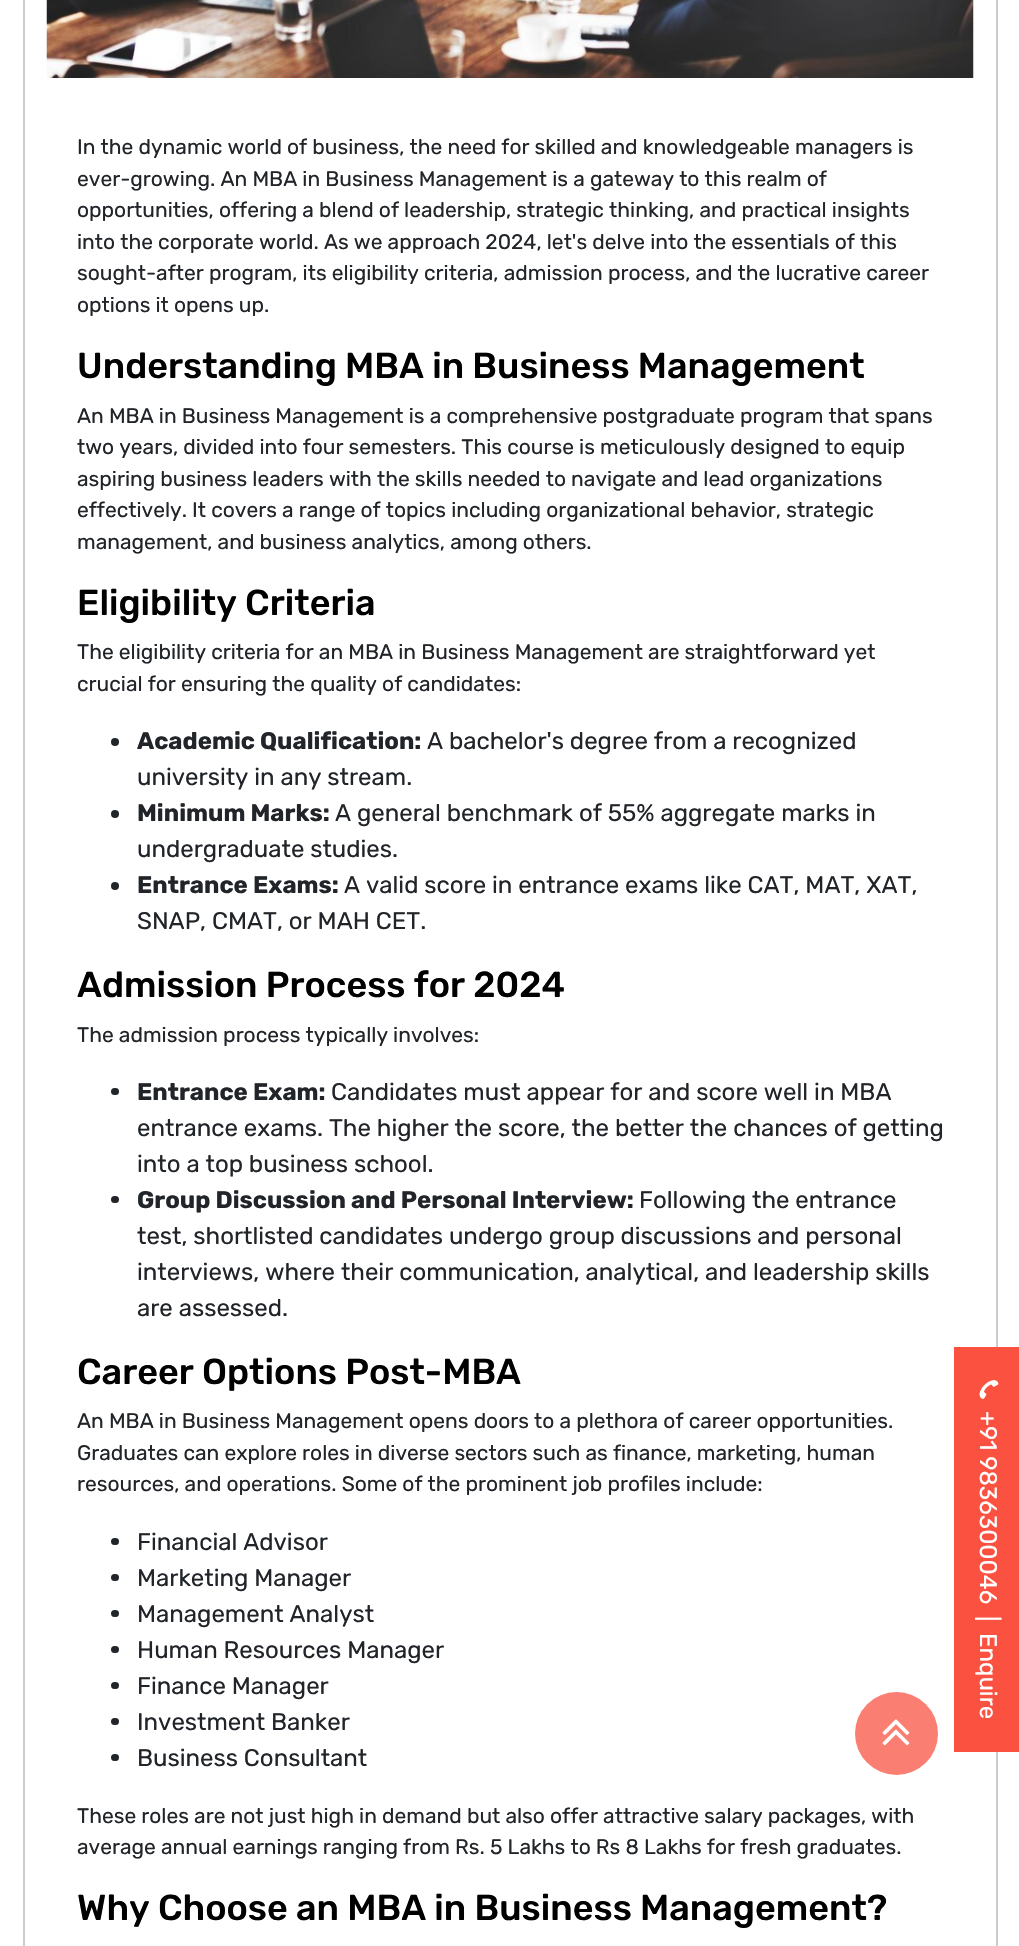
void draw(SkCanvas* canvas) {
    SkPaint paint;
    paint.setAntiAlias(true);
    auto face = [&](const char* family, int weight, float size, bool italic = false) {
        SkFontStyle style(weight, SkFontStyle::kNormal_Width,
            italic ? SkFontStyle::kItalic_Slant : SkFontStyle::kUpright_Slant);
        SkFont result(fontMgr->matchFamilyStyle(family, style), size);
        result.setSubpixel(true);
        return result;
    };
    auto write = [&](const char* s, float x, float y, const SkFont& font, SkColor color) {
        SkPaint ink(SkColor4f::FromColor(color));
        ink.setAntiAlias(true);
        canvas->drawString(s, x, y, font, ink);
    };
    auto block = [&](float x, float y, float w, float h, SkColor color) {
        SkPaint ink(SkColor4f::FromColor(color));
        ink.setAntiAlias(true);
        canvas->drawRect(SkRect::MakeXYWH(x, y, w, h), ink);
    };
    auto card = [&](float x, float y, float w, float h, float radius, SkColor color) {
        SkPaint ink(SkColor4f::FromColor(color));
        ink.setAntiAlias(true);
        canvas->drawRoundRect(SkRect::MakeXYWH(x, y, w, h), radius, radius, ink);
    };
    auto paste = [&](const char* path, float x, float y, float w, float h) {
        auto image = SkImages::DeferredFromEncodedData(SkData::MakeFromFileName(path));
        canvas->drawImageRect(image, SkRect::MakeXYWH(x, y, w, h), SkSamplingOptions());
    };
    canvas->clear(SK_ColorWHITE);
    paint.setStyle(SkPaint::kStroke_Style);
    paint.setStrokeWidth(2);
    paint.setColor(SkColorSetRGB(204, 204, 204));
    canvas->drawRect(SkRect::MakeXYWH(24, -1, 973, 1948), paint);
    paste("pic1.png", 46, 0, 928, 78);
    auto kFont1 = face("Rubik", 400, 21);
    write("In the dynamic world of business, the need for skilled and knowledgeable managers is", 77, 154, kFont1, SkColorSetRGB(33, 37, 41));
    write("ever-growing. An MBA in Business Management is a gateway to this realm of", 77, 186, kFont1, SkColorSetRGB(33, 37, 41));
    write("opportunities, offering a blend of leadership, strategic thinking, and practical insights", 77, 217, kFont1, SkColorSetRGB(33, 37, 41));
    write("into the corporate world. As we approach 2024, let's delve into the essentials of this", 77, 249, kFont1, SkColorSetRGB(33, 37, 41));
    write("sought-after program, its eligibility criteria, admission process, and the lucrative career", 77, 280, kFont1, SkColorSetRGB(33, 37, 41));
    write("options it opens up.", 77, 312, kFont1, SkColorSetRGB(33, 37, 41));
    auto kFont2 = face("Rubik", 500, 36);
    write("Understanding MBA in Business Management", 77, 378, kFont2, SK_ColorBLACK);
    write("An MBA in Business Management is a comprehensive postgraduate program that spans", 77, 423, kFont1, SkColorSetRGB(33, 37, 41));
    write("two years, divided into four semesters. This course is meticulously designed to equip", 77, 454, kFont1, SkColorSetRGB(33, 37, 41));
    write("aspiring business leaders with the skills needed to navigate and lead organizations", 77, 486, kFont1, SkColorSetRGB(33, 37, 41));
    write("effectively. It covers a range of topics including organizational behavior, strategic", 77, 517, kFont1, SkColorSetRGB(33, 37, 41));
    write("management, and business analytics, among others.", 77, 549, kFont1, SkColorSetRGB(33, 37, 41));
    write("Eligibility Criteria", 77, 615, kFont2, SK_ColorBLACK);
    write("The eligibility criteria for an MBA in Business Management are straightforward yet", 77, 659, kFont1, SkColorSetRGB(33, 37, 41));
    write("crucial for ensuring the quality of candidates:", 77, 691, kFont1, SkColorSetRGB(33, 37, 41));
    paint.setStyle(SkPaint::kFill_Style);
    paint.setColor(SkColorSetRGB(33, 37, 41));
    canvas->drawCircle(115, 742, 4, paint);
    auto kFont3 = face("Rubik", 700, 24);
    write("Academic Qualification:", 137, 749, kFont3, SkColorSetRGB(33, 37, 41));
    auto kFont4 = face("Rubik", 400, 24);
    write("A bachelor's degree from a recognized", 427, 749, kFont4, SkColorSetRGB(33, 37, 41));
    write("university in any stream.", 137, 785, kFont4, SkColorSetRGB(33, 37, 41));
    canvas->drawCircle(115, 814, 4, paint);
    write("Minimum Marks:", 137, 821, kFont3, SkColorSetRGB(33, 37, 41));
    write("A general benchmark of 55% aggregate marks in", 335, 821, kFont4, SkColorSetRGB(33, 37, 41));
    write("undergraduate studies.", 137, 857, kFont4, SkColorSetRGB(33, 37, 41));
    canvas->drawCircle(115, 886, 4, paint);
    write("Entrance Exams:", 137, 893, kFont3, SkColorSetRGB(33, 37, 41));
    write("A valid score in entrance exams like CAT, MAT, XAT,", 344, 893, kFont4, SkColorSetRGB(33, 37, 41));
    write("SNAP, CMAT, or MAH CET.", 137, 929, kFont4, SkColorSetRGB(33, 37, 41));
    write("Admission Process for 2024", 77, 997, kFont2, SK_ColorBLACK);
    write("The admission process typically involves:", 77, 1042, kFont1, SkColorSetRGB(33, 37, 41));
    card(111, 1088, 8, 7, 3.5f, SkColorSetRGB(33, 37, 41));
    write("Entrance Exam:", 137, 1100, kFont3, SkColorSetRGB(33, 37, 41));
    write("Candidates must appear for and score well in MBA", 331, 1100, kFont4, SkColorSetRGB(33, 37, 41));
    write("entrance exams. The higher the score, the better the chances of getting", 137, 1136, kFont4, SkColorSetRGB(33, 37, 41));
    write("into a top business school.", 137, 1172, kFont4, SkColorSetRGB(33, 37, 41));
    card(111, 1196, 8, 7, 3.5f, SkColorSetRGB(33, 37, 41));
    write("Group Discussion and Personal Interview:", 137, 1208, kFont3, SkColorSetRGB(33, 37, 41));
    write("Following the entrance", 639, 1208, kFont4, SkColorSetRGB(33, 37, 41));
    write("test, shortlisted candidates undergo group discussions and personal", 137, 1244, kFont4, SkColorSetRGB(33, 37, 41));
    write("interviews, where their communication, analytical, and leadership skills", 137, 1280, kFont4, SkColorSetRGB(33, 37, 41));
    write("are assessed.", 137, 1316, kFont4, SkColorSetRGB(33, 37, 41));
    write("Career Options Post-MBA", 77, 1384, kFont2, SK_ColorBLACK);
    write("An MBA in Business Management opens doors to a plethora of career opportunities.", 77, 1428, kFont1, SkColorSetRGB(33, 37, 41));
    write("Graduates can explore roles in diverse sectors such as finance, marketing, human", 77, 1460, kFont1, SkColorSetRGB(33, 37, 41));
    write("resources, and operations. Some of the prominent job profiles include:", 77, 1491, kFont1, SkColorSetRGB(33, 37, 41));
    card(111, 1538, 8, 7, 3.5f, SkColorSetRGB(33, 37, 41));
    write("Financial Advisor", 137, 1550, kFont4, SkColorSetRGB(33, 37, 41));
    card(111, 1574, 8, 7, 3.5f, SkColorSetRGB(33, 37, 41));
    write("Marketing Manager", 137, 1586, kFont4, SkColorSetRGB(33, 37, 41));
    card(111, 1610, 8, 7, 3.5f, SkColorSetRGB(33, 37, 41));
    write("Management Analyst", 137, 1622, kFont4, SkColorSetRGB(33, 37, 41));
    card(111, 1646, 8, 7, 3.5f, SkColorSetRGB(33, 37, 41));
    write("Human Resources Manager", 137, 1658, kFont4, SkColorSetRGB(33, 37, 41));
    card(111, 1682, 8, 7, 3.5f, SkColorSetRGB(33, 37, 41));
    write("Finance Manager", 137, 1694, kFont4, SkColorSetRGB(33, 37, 41));
    card(111, 1718, 8, 7, 3.5f, SkColorSetRGB(33, 37, 41));
    write("Investment Banker", 137, 1730, kFont4, SkColorSetRGB(33, 37, 41));
    card(111, 1754, 8, 7, 3.5f, SkColorSetRGB(33, 37, 41));
    write("Business Consultant", 137, 1766, kFont4, SkColorSetRGB(33, 37, 41));
    write("These roles are not just high in demand but also offer attractive salary packages, with", 77, 1823, kFont1, SkColorSetRGB(33, 37, 41));
    write("average annual earnings ranging from Rs. 5 Lakhs to Rs 8 Lakhs for fresh graduates.", 77, 1854, kFont1, SkColorSetRGB(33, 37, 41));
    write("Why Choose an MBA in Business Management?", 77, 1920, kFont2, SK_ColorBLACK);
    block(954, 1347, 65, 405, SkColorSetRGB(250, 81, 64));
    paste("pic2.png", 979, 1380, 20, 19);
    canvas->save();
    canvas->rotate(90, 980, 1411);
    write("+91 9836300046", 980, 1411, kFont4, SK_ColorWHITE);
    canvas->restore();
    canvas->save();
    canvas->rotate(90, 980, 1616);
    write("|", 980, 1616, kFont4, SK_ColorWHITE);
    canvas->restore();
    canvas->save();
    canvas->rotate(90, 980, 1633);
    write("Enquire", 980, 1633, kFont4, SK_ColorWHITE);
    canvas->restore();
    paint.setColor(SkColorSetRGB(251, 126, 114));
    canvas->drawCircle(896.5f, 1733.5f, 41.5f, paint);
    paste("pic3.png", 882, 1719, 28, 27);
}
